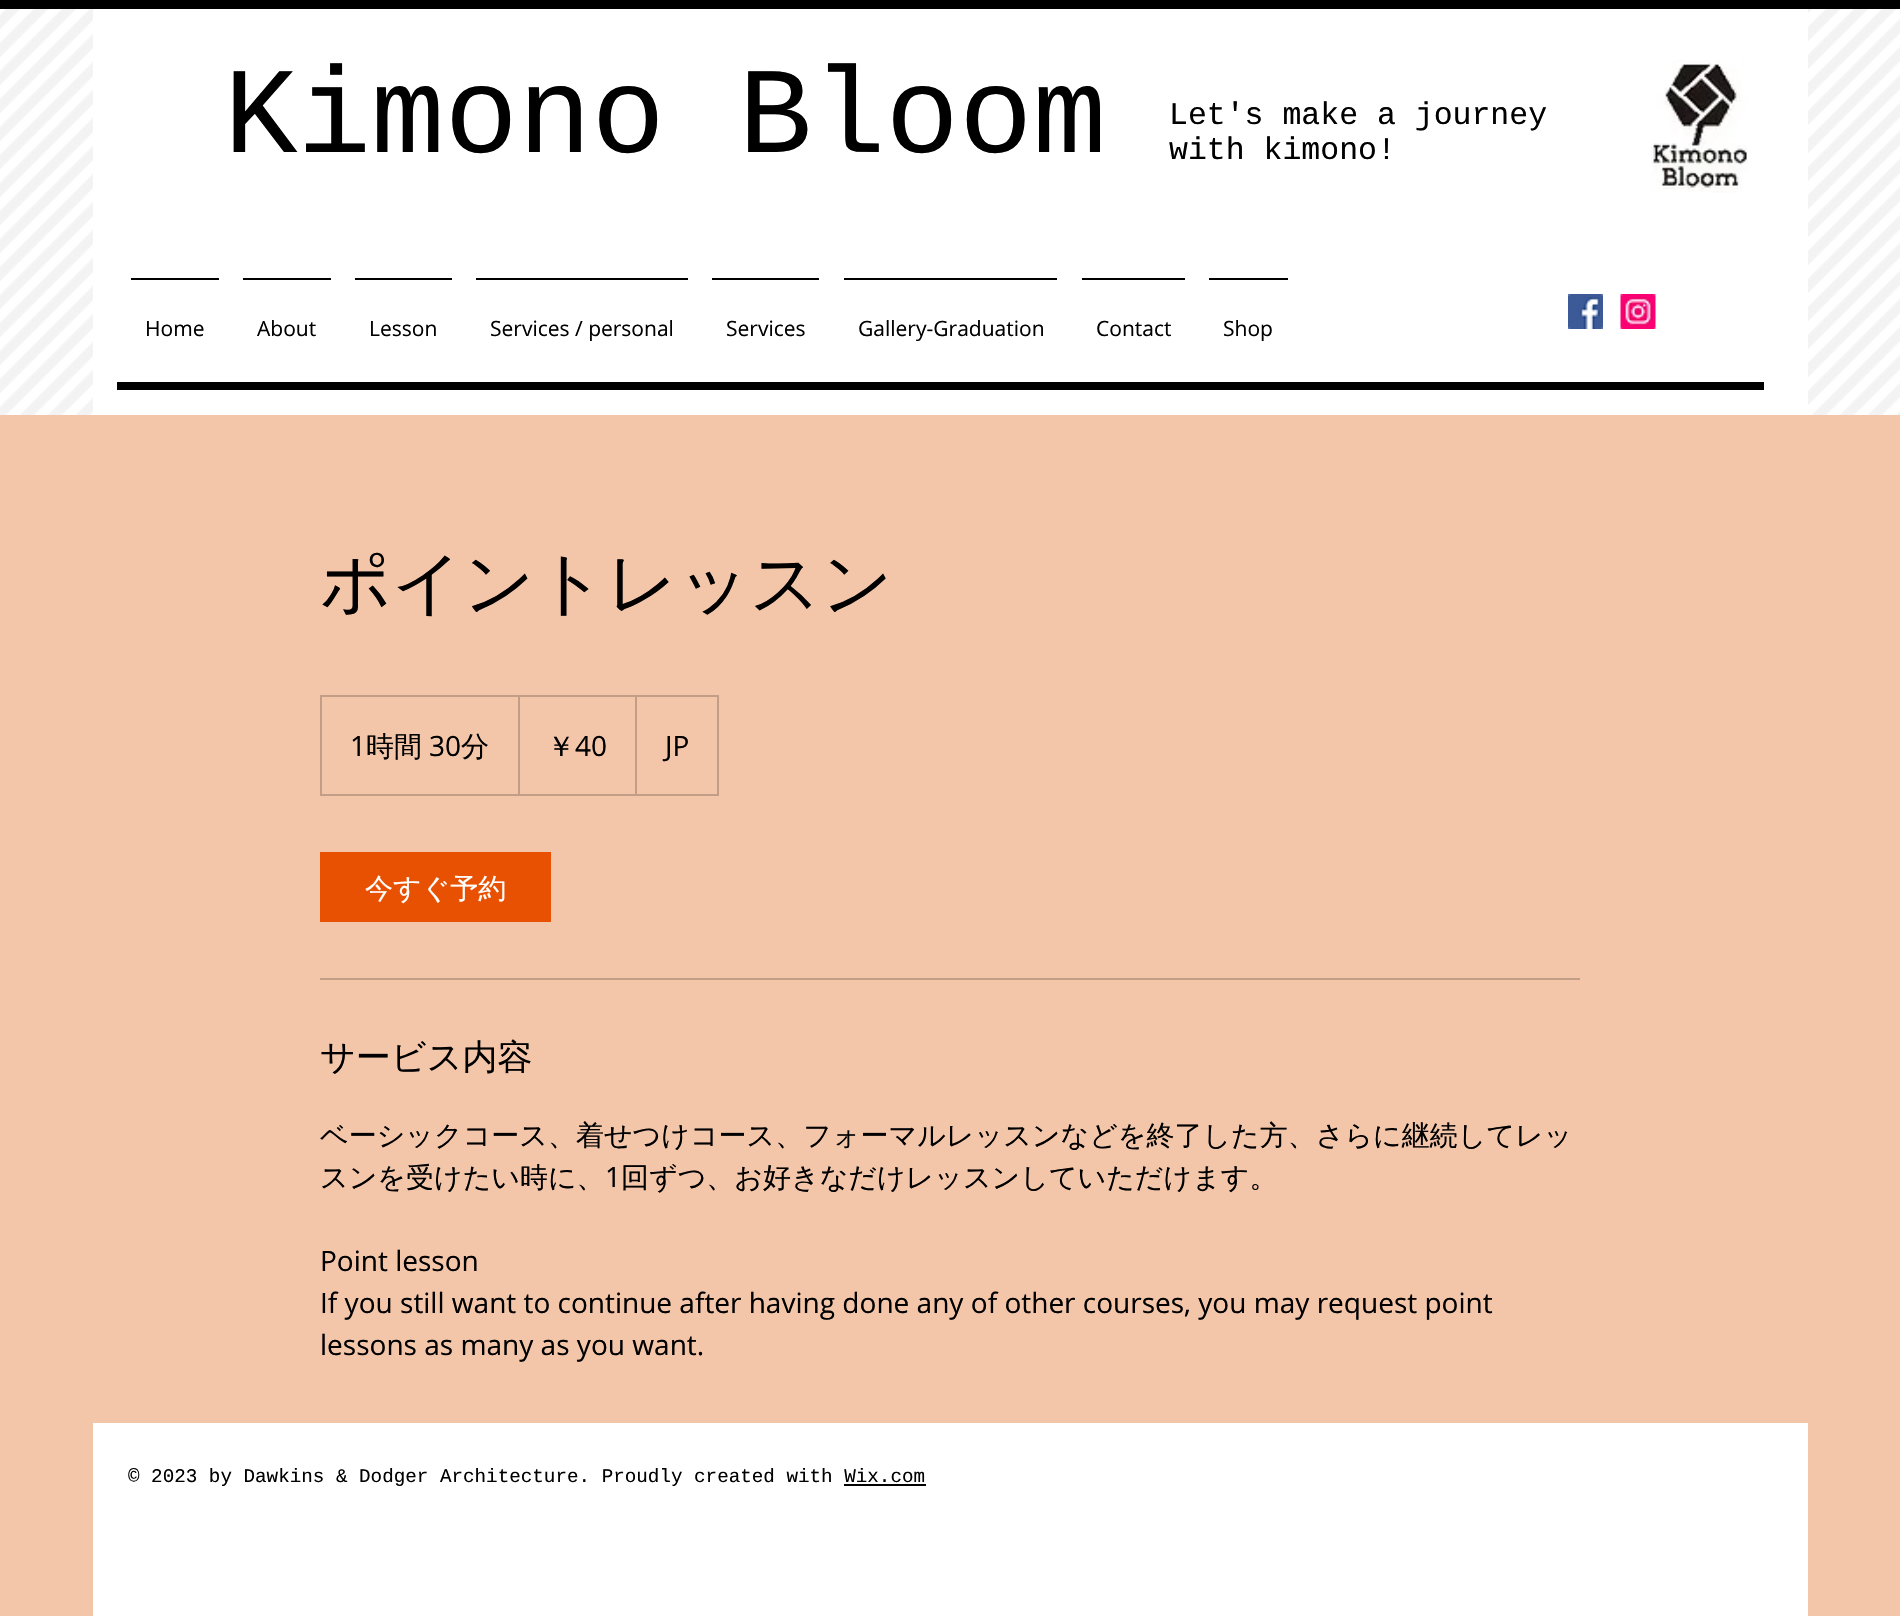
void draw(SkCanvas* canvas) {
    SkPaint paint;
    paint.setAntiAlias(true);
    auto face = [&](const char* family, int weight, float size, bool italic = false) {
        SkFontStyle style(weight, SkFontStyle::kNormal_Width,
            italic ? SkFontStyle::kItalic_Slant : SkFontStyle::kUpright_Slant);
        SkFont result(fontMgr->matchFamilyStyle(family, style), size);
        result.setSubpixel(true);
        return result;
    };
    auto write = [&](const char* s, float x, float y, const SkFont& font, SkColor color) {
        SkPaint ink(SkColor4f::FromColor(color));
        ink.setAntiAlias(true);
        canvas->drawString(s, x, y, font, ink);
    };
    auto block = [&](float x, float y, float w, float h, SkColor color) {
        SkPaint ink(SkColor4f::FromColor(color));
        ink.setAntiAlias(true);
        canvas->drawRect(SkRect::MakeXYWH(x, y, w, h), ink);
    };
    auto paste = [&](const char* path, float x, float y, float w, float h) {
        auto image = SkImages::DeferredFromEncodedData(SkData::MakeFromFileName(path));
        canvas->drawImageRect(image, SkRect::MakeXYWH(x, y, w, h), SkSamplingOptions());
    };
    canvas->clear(SK_ColorWHITE);
    paste("pic1.png", 0, 9, 1900, 406);
    block(0, 0, 1900, 9, SK_ColorBLACK);
    block(93, 9, 1715, 406, SK_ColorWHITE);
    auto kFont1 = face("Liberation Mono", 400, 122.5f);
    write("Kimono Bloom", 224, 152, kFont1, SK_ColorBLACK);
    auto kFont2 = face("Liberation Mono", 400, 31.5f);
    write("Let's make a journey", 1169, 124, kFont2, SK_ColorBLACK);
    write("with kimono!", 1169, 159, kFont2, SK_ColorBLACK);
    paste("pic2.png", 1651, 60, 97, 133);
    block(131, 278, 88, 2, SK_ColorBLACK);
    auto kFont3 = face("Open Sans", 400, 21);
    write("Home", 145, 336, kFont3, SK_ColorBLACK);
    block(243, 278, 88, 2, SK_ColorBLACK);
    write("About", 257, 336, kFont3, SK_ColorBLACK);
    block(355, 278, 97, 2, SK_ColorBLACK);
    write("Lesson", 369, 336, kFont3, SK_ColorBLACK);
    block(476, 278, 212, 2, SK_ColorBLACK);
    write("Services / personal", 490, 336, kFont3, SK_ColorBLACK);
    block(712, 278, 107, 2, SK_ColorBLACK);
    write("Services", 726, 336, kFont3, SK_ColorBLACK);
    block(844, 278, 213, 2, SK_ColorBLACK);
    write("Gallery-Graduation", 858, 336, kFont3, SK_ColorBLACK);
    block(1082, 278, 103, 2, SK_ColorBLACK);
    write("Contact", 1096, 336, kFont3, SK_ColorBLACK);
    block(1209, 278, 79, 2, SK_ColorBLACK);
    write("Shop", 1223, 336, kFont3, SK_ColorBLACK);
    paste("pic3.png", 1568, 294, 35, 35);
    paste("pic4.png", 1620, 294, 36, 35);
    block(117, 382, 1647, 8, SK_ColorBLACK);
    block(0, 415, 1900, 1201, SkColorSetRGB(243, 197, 169));
    auto kFont4 = face("WenQuanYi Zen Hei", 500, 70);
    write("ポイントレッスン", 320, 607, kFont4, SK_ColorBLACK);
    paint.setStyle(SkPaint::kStroke_Style);
    paint.setStrokeWidth(2);
    paint.setColor(SkColorSetRGB(194, 158, 135));
    canvas->drawRect(SkRect::MakeXYWH(321, 696, 397, 99), paint);
    auto kFont5 = face("Open Sans", 400, 28);
    write("1", 350, 756, kFont5, SK_ColorBLACK);
    auto kFont6 = face("WenQuanYi Zen Hei", 500, 28);
    write("時間", 366, 756, kFont6, SK_ColorBLACK);
    write("30", 429, 756, kFont5, SK_ColorBLACK);
    write("分", 461, 756, kFont6, SK_ColorBLACK);
    canvas->save();
    canvas->clipRect(SkRect::MakeXYWH(322, 697, 396, 98));
    paint.setStyle(SkPaint::kFill_Style);
    canvas->drawPath(SkPathBuilder().moveTo(518, 794).lineTo(518, 695).lineTo(520, 696).lineTo(520, 794).close().detach(), paint);
    canvas->restore();
    write("￥", 547, 756, kFont6, SK_ColorBLACK);
    write("40", 575, 756, kFont5, SK_ColorBLACK);
    canvas->save();
    canvas->clipRect(SkRect::MakeXYWH(322, 697, 396, 98));
    canvas->drawPath(SkPathBuilder().moveTo(635, 794).lineTo(635, 695).lineTo(637, 696).lineTo(637, 794).close().detach(), paint);
    canvas->restore();
    write("JP", 665, 756, kFont5, SK_ColorBLACK);
    block(320, 852, 231, 70, SkColorSetRGB(231, 81, 1));
    write("今すぐ予約", 365, 898, kFont6, SK_ColorWHITE);
    block(320, 978, 1260, 2, SkColorSetRGB(194, 158, 135));
    auto kFont7 = face("WenQuanYi Zen Hei", 500, 35);
    write("サービス内容", 320, 1069, kFont7, SK_ColorBLACK);
    write("ベーシックコース、着せつけコース、フォーマルレッスンなどを終了した方、さらに継続してレッ", 320, 1145, kFont6, SK_ColorBLACK);
    write("スンを受けたい時に、", 320, 1187, kFont6, SK_ColorBLACK);
    write("1", 605, 1187, kFont5, SK_ColorBLACK);
    write("回ずつ、お好きなだけレッスンしていただけます。", 621, 1187, kFont6, SK_ColorBLACK);
    write("Point lesson", 320, 1271, kFont5, SK_ColorBLACK);
    write("If you still want to continue after having done any of other courses, you may request point", 320, 1313, kFont5, SK_ColorBLACK);
    write("lessons as many as you want.", 320, 1355, kFont5, SK_ColorBLACK);
    block(93, 1423, 1715, 193, SK_ColorWHITE);
    auto kFont8 = face("Liberation Mono", 400, 19.25f);
    write("© 2023 by Dawkins & Dodger Architecture. Proudly created with Wix.com", 128, 1482, kFont8, SK_ColorBLACK);
    block(844, 1484, 82, 2, SK_ColorBLACK);
}
